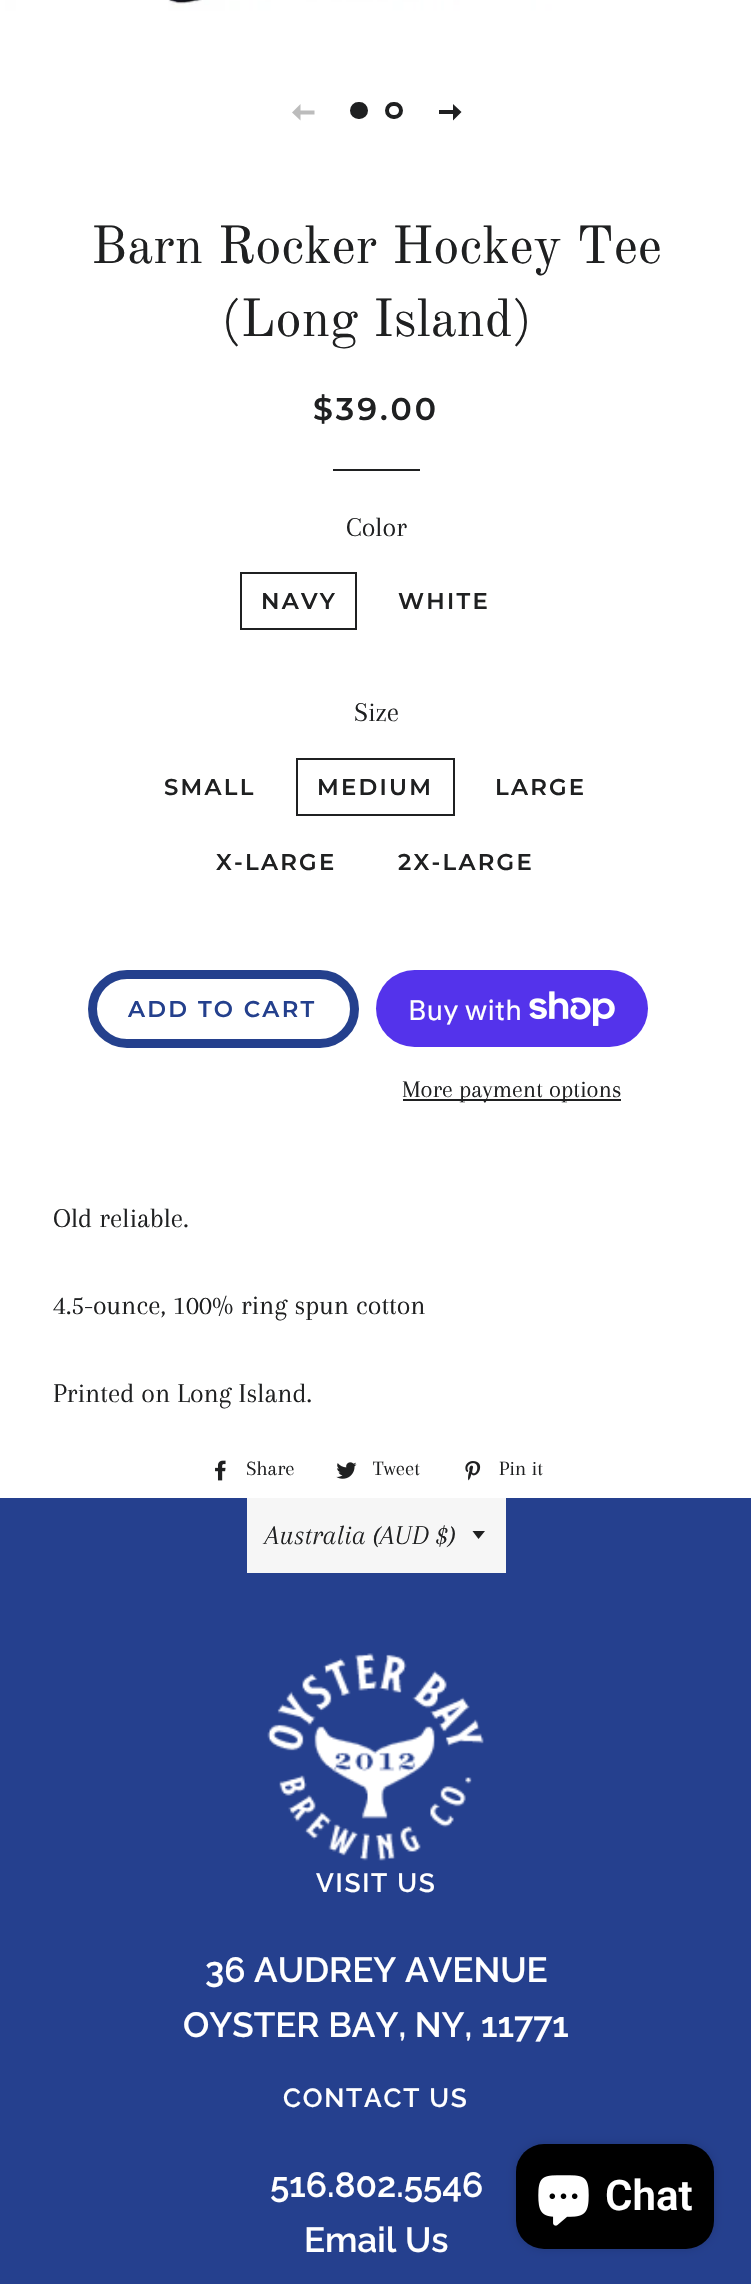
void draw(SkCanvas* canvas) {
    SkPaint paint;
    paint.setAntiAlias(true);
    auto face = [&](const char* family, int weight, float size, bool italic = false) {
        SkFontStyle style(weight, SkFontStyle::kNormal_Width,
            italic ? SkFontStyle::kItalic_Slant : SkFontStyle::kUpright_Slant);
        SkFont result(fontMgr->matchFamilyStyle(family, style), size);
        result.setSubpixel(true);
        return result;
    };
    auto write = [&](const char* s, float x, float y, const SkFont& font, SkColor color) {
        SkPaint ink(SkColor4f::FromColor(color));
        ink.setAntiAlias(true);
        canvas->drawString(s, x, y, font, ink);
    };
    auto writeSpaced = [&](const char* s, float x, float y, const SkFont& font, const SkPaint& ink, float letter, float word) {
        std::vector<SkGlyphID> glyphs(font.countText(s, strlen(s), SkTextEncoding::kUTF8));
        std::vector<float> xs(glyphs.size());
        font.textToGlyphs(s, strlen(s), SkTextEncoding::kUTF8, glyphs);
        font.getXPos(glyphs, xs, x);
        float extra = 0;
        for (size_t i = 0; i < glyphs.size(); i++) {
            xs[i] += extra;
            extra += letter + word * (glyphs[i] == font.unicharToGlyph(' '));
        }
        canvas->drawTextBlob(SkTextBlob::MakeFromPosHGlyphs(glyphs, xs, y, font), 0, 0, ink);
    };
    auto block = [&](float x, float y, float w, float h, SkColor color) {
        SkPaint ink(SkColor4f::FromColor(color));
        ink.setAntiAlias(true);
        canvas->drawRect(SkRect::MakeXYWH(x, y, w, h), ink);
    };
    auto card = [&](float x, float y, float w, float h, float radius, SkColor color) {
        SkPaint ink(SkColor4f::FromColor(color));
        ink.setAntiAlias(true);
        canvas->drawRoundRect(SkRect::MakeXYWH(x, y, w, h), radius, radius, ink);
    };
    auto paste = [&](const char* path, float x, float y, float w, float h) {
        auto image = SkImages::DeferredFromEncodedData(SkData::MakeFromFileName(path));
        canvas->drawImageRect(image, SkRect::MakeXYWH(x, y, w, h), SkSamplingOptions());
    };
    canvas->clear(SK_ColorWHITE);
    paste("pic1.png", 0, 0, 751, 28);
    paint.setColor(SkColorSetRGB(188, 188, 188));
    canvas->drawPath(SkPathBuilder().moveTo(292, 112.5f).lineTo(300.5f, 120.5f).lineTo(300.5f, 114.5f).lineTo(314.5f, 114.5f).lineTo(314.5f, 110.5f).lineTo(300.5f, 110.5f).lineTo(300.5f, 104).close().detach(), paint);
    paint.setColor(SkColorSetRGB(31, 32, 33));
    canvas->drawRoundRect(SkRect::MakeXYWH(352, 104, 14, 13), 6.5f, 6.5f, paint);
    paint.setStyle(SkPaint::kStroke_Style);
    paint.setStrokeWidth(4);
    canvas->drawRoundRect(SkRect::MakeXYWH(352, 104, 14, 13), 6.5f, 6.5f, paint);
    canvas->drawRoundRect(SkRect::MakeXYWH(387, 104, 14, 13), 6.5f, 6.5f, paint);
    paint.setStyle(SkPaint::kFill_Style);
    canvas->drawPath(SkPathBuilder().moveTo(461.5f, 112).lineTo(453, 104).lineTo(453, 110).lineTo(439, 110).lineTo(439, 114).lineTo(453, 114).lineTo(453, 120.5f).close().detach(), paint);
    auto kFont1 = face("Old Standard TT", 400, 52.5f);
    write("Barn Rocker Hockey Tee", 91, 263, kFont1, SkColorSetRGB(31, 32, 33));
    write("(Long Island)", 221, 336, kFont1, SkColorSetRGB(31, 32, 33));
    auto kFont2 = face("Montserrat", 600, 31.5f);
    writeSpaced("$39.00", 313, 420, kFont2, paint, 3, 0);
    block(333, 469, 87, 2, SkColorSetRGB(31, 32, 33));
    auto kFont3 = face("Arapey", 400, 28);
    write("Color", 346, 536, kFont3, SkColorSetRGB(31, 32, 33));
    paint.setStyle(SkPaint::kStroke_Style);
    paint.setStrokeWidth(2);
    canvas->drawRect(SkRect::MakeXYWH(241, 573, 115, 56), paint);
    auto kFont4 = face("Montserrat", 600, 22.75f);
    paint.setStyle(SkPaint::kFill_Style);
    writeSpaced("NAVY", 261, 609, kFont4, paint, 2.25f, 0);
    writeSpaced("WHITE", 398, 609, kFont4, paint, 2.25f, 0);
    write("Size", 354, 721, kFont3, SkColorSetRGB(31, 32, 33));
    writeSpaced("SMALL", 164, 795, kFont4, paint, 2.25f, 0);
    paint.setStyle(SkPaint::kStroke_Style);
    canvas->drawRect(SkRect::MakeXYWH(297, 759, 157, 56), paint);
    paint.setStyle(SkPaint::kFill_Style);
    writeSpaced("MEDIUM", 317, 795, kFont4, paint, 2.25f, 0);
    writeSpaced("LARGE", 495, 795, kFont4, paint, 2.25f, 0);
    writeSpaced("X-LARGE", 216, 870, kFont4, paint, 2.25f, 0);
    writeSpaced("2X-LARGE", 398, 870, kFont4, paint, 2.25f, 0);
    paint.setStyle(SkPaint::kStroke_Style);
    paint.setStrokeWidth(9);
    paint.setColor(SkColorSetRGB(36, 64, 141));
    canvas->drawRoundRect(SkRect::MakeXYWH(92.5f, 974.5f, 262, 69), 34.5f, 34.5f, paint);
    paint.setStyle(SkPaint::kFill_Style);
    writeSpaced("ADD TO CART", 128, 1017, kFont4, paint, 2.25f, 0);
    card(376, 970, 272, 77, 38.5f, SkColorSetRGB(84, 51, 235));
    auto kFont5 = face("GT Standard", 400, 28);
    write("Buy with", 408, 1020, kFont5, SK_ColorWHITE);
    paste("pic2.png", 529, 991, 86, 35);
    block(403, 1099, 218, 2, SkColorSetRGB(31, 32, 33));
    auto kFont6 = face("Arapey", 400, 24.5f);
    write("More payment options", 402, 1097, kFont6, SkColorSetRGB(31, 32, 33));
    write("Old reliable.", 53, 1227, kFont3, SkColorSetRGB(31, 32, 33));
    write("4.5-ounce, 100% ring spun cotton", 53, 1314, kFont3, SkColorSetRGB(31, 32, 33));
    write("Printed on Long Island.", 53, 1402, kFont3, SkColorSetRGB(31, 32, 33));
    paste("pic3.png", 215, 1460, 11, 21);
    auto kFont7 = face("Arapey", 400, 21);
    write("Share", 246, 1475, kFont7, SkColorSetRGB(31, 32, 33));
    paste("pic4.png", 336, 1462, 21, 17);
    write("Tweet", 373, 1475, kFont7, SkColorSetRGB(31, 32, 33));
    paste("pic5.png", 465, 1461, 16, 20);
    write("Pin it", 499, 1475, kFont7, SkColorSetRGB(31, 32, 33));
    block(0, 1498, 751, 786, SkColorSetRGB(37, 64, 142));
    block(247, 1498, 259, 75, SkColorSetRGB(246, 246, 246));
    paint.setColor(SkColorSetRGB(31, 32, 33));
    canvas->drawPath(SkPathBuilder().moveTo(472.5f, 1531).lineTo(478.5f, 1539).lineTo(485, 1531).close().detach(), paint);
    auto kFont8 = face("Arapey", 400, 28, true);
    write("Australia (AUD $)", 265, 1544, kFont8, SkColorSetRGB(31, 32, 33));
    paste("pic6.png", 267, 1653, 217, 208);
    auto kFont9 = face("Raleway", 600, 26.25f);
    paint.setColor(SK_ColorWHITE);
    writeSpaced("VISIT US", 316, 1892, kFont9, paint, 1.75f, 0);
    auto kFont10 = face("Raleway", 600, 35);
    write("36 AUDREY AVENUE", 205, 1982, kFont10, SK_ColorWHITE);
    write("OYSTER BAY, NY, 11771", 183, 2037, kFont10, SK_ColorWHITE);
    writeSpaced("CONTACT US", 283, 2107, kFont9, paint, 1.75f, 0);
    write("516.802.5546", 270, 2197, kFont10, SK_ColorWHITE);
    write("Email Us", 304, 2252, kFont10, SK_ColorWHITE);
    paint.setColor(SkColorSetARGB(38, 0, 0, 0));
    paint.setMaskFilter(SkMaskFilter::MakeBlur(kNormal_SkBlurStyle, 4.5f));
    canvas->drawRoundRect(SkRect::MakeXYWH(516, 2144, 198, 105), 28, 28, paint);
    paint.setMaskFilter(nullptr);
    card(516, 2144, 198, 105, 28, SK_ColorBLACK);
    paste("pic7.png", 538, 2175, 51, 51);
    auto kFont11 = face("Roboto", 600, 42);
    write("Chat", 605, 2210, kFont11, SK_ColorWHITE);
}
